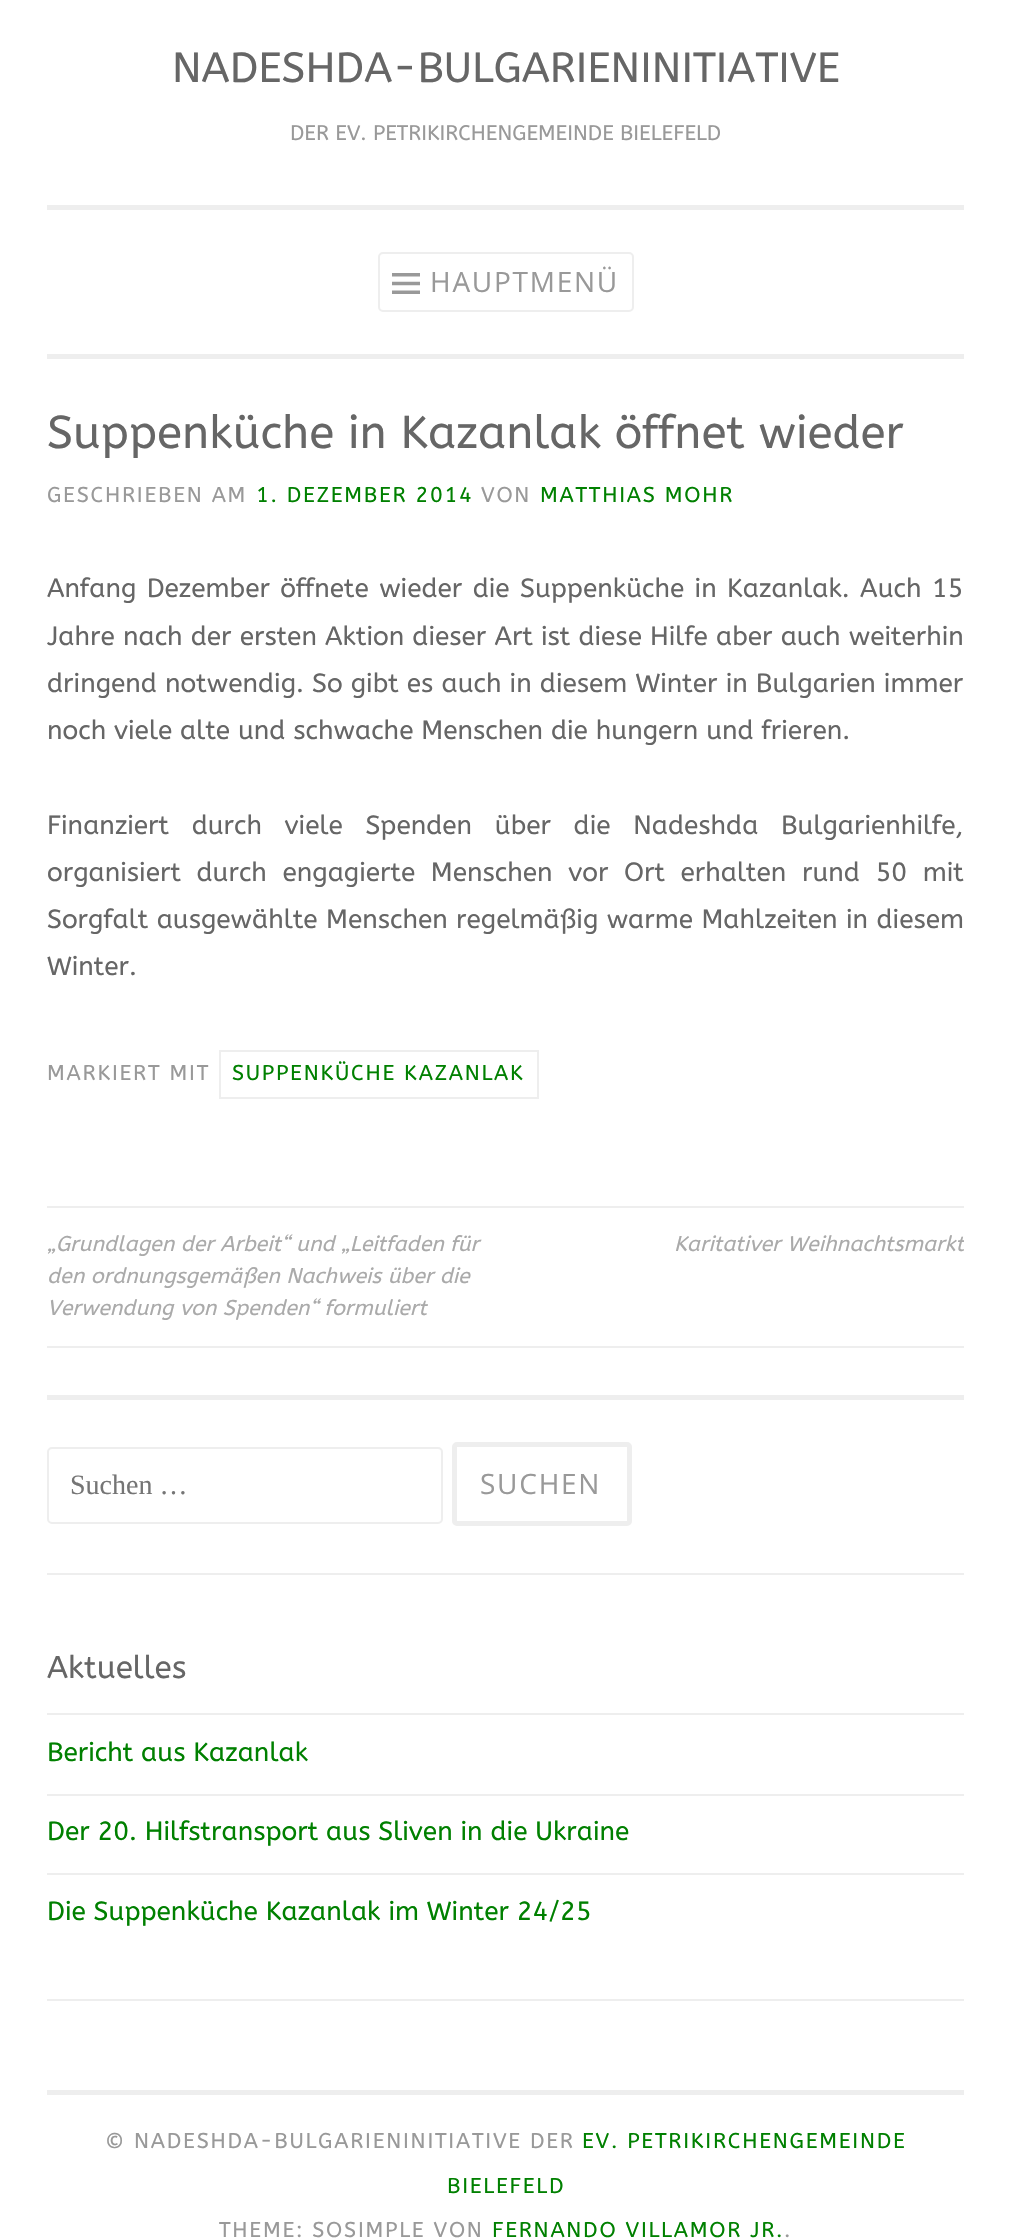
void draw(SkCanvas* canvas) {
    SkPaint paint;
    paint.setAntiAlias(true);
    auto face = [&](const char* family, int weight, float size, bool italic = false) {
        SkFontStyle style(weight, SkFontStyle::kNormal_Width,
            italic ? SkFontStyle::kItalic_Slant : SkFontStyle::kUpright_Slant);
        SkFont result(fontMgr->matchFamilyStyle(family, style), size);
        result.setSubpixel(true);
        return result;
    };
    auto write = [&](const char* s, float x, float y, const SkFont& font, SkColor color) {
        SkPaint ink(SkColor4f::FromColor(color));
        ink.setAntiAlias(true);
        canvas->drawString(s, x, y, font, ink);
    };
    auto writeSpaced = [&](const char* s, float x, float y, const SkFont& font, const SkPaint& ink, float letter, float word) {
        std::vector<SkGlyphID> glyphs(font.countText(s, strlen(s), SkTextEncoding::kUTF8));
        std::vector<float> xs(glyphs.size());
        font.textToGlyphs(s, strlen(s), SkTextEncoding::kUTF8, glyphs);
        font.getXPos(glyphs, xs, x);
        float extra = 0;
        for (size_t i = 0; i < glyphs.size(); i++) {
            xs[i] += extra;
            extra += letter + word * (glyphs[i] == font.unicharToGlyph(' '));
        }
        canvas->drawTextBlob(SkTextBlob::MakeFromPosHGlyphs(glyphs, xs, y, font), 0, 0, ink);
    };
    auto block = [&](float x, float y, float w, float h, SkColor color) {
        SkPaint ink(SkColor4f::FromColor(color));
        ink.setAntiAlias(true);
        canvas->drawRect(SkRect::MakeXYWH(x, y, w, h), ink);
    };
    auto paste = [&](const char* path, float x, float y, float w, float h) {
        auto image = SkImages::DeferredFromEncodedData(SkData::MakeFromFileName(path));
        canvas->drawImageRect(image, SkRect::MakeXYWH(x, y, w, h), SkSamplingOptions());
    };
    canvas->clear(SK_ColorWHITE);
    block(47, 354, 917, 5, SkColorSetRGB(238, 238, 238));
    auto kFont1 = face("ABeeZee", 400, 42);
    write("NADESHDA-BULGARIENINITIATIVE", 172, 82, kFont1, SkColorSetRGB(102, 102, 102));
    auto kFont2 = face("ABeeZee", 400, 21);
    write("DER EV. PETRIKIRCHENGEMEINDE BIELEFELD", 290, 140, kFont2, SkColorSetRGB(153, 153, 153));
    block(47, 205, 917, 5, SkColorSetRGB(238, 238, 238));
    paint.setStyle(SkPaint::kStroke_Style);
    paint.setStrokeWidth(2);
    paint.setColor(SkColorSetRGB(238, 238, 238));
    canvas->drawRoundRect(SkRect::MakeXYWH(379, 253, 254, 58), 4, 4, paint);
    paste("pic1.png", 392, 273, 28, 21);
    auto kFont3 = face("Open Sans", 400, 28);
    paint.setStyle(SkPaint::kFill_Style);
    paint.setColor(SkColorSetRGB(153, 153, 153));
    writeSpaced("HAUPTMENÜ", 430, 292, kFont3, paint, 1.75f, 0);
    auto kFont4 = face("ABeeZee", 400, 45.9f);
    write("Suppenküche in Kazanlak öffnet wieder", 47, 448, kFont4, SkColorSetRGB(102, 102, 102));
    auto kFont5 = face("ABeeZee", 400, 21.3f);
    writeSpaced("GESCHRIEBEN AM", 47, 502, kFont5, paint, 1.75f, 0);
    paint.setColor(SkColorSetRGB(0, 128, 0));
    writeSpaced("1. DEZEMBER 2014", 256, 502, kFont5, paint, 1.75f, 0);
    paint.setColor(SkColorSetRGB(153, 153, 153));
    writeSpaced("VON", 481, 502, kFont5, paint, 1.75f, 0);
    paint.setColor(SkColorSetRGB(0, 128, 0));
    writeSpaced("MATTHIAS MOHR", 540, 502, kFont5, paint, 1.75f, 0);
    auto kFont6 = face("ABeeZee", 400, 26.25f);
    paint.setColor(SkColorSetRGB(102, 102, 102));
    writeSpaced("Anfang Dezember öffnete wieder die Suppenküche in Kazanlak. Auch 15", 47, 597, kFont6, paint, 0, 2.5f);
    writeSpaced("Jahre nach der ersten Aktion dieser Art ist diese Hilfe aber auch weiterhin", 47, 645, kFont6, paint, 0, 0.25f);
    writeSpaced("dringend notwendig. So gibt es auch in diesem Winter in Bulgarien immer", 47, 692, kFont6, paint, 0, 0.25f);
    write("noch viele alte und schwache Menschen die hungern und frieren.", 47, 739, kFont6, SkColorSetRGB(102, 102, 102));
    writeSpaced("Finanziert durch viele Spenden über die Nadeshda Bulgarienhilfe,", 47, 834, kFont6, paint, 0, 14.75f);
    writeSpaced("organisiert durch engagierte Menschen vor Ort erhalten rund 50 mit", 47, 881, kFont6, paint, 0, 7.75f);
    writeSpaced("Sorgfalt ausgewählte Menschen regelmäßig warme Mahlzeiten in diesem", 47, 928, kFont6, paint, 0, 0.5f);
    write("Winter.", 47, 975, kFont6, SkColorSetRGB(102, 102, 102));
    paint.setColor(SkColorSetRGB(153, 153, 153));
    writeSpaced("MARKIERT MIT", 47, 1080, kFont5, paint, 1.75f, 0);
    paint.setStyle(SkPaint::kStroke_Style);
    paint.setColor(SkColorSetRGB(238, 238, 238));
    canvas->drawRect(SkRect::MakeXYWH(220, 1051, 318, 47), paint);
    paint.setStyle(SkPaint::kFill_Style);
    paint.setColor(SkColorSetRGB(0, 128, 0));
    writeSpaced("SUPPENKÜCHE KAZANLAK", 232, 1080, kFont5, paint, 1.75f, 0);
    block(47, 1206, 917, 2, SkColorSetRGB(238, 238, 238));
    block(47, 1346, 917, 2, SkColorSetRGB(238, 238, 238));
    auto kFont7 = face("ABeeZee", 400, 21.3f, true);
    write("„Grundlagen der Arbeit“ und „Leitfaden für", 47, 1251, kFont7, SkColorSetRGB(170, 170, 170));
    write("den ordnungsgemäßen Nachweis über die", 47, 1283, kFont7, SkColorSetRGB(170, 170, 170));
    write("Verwendung von Spenden“ formuliert", 47, 1315, kFont7, SkColorSetRGB(170, 170, 170));
    canvas->save();
    canvas->clipRect(SkRect::MakeXYWH(47, 1208, 917, 138));
    write("Karitativer Weihnachtsmarkt", 674, 1251, kFont7, SkColorSetRGB(170, 170, 170));
    canvas->restore();
    block(47, 1395, 917, 5, SkColorSetRGB(238, 238, 238));
    block(47, 1573, 917, 2, SkColorSetRGB(238, 238, 238));
    paint.setStyle(SkPaint::kStroke_Style);
    paint.setColor(SkColorSetRGB(238, 238, 238));
    canvas->drawRoundRect(SkRect::MakeXYWH(48, 1448, 394, 75), 4, 4, paint);
    auto kFont8 = face("Liberation Serif", 400, 28);
    write("Suchen …", 70, 1494, kFont8, SkColorSetRGB(117, 117, 117));
    paint.setStrokeWidth(5);
    canvas->drawRoundRect(SkRect::MakeXYWH(454.5f, 1444.5f, 175, 79), 2.5f, 2.5f, paint);
    paint.setStyle(SkPaint::kFill_Style);
    paint.setColor(SkColorSetRGB(153, 153, 153));
    writeSpaced("SUCHEN", 480, 1494, kFont3, paint, 1.75f, 0);
    block(47, 1999, 917, 2, SkColorSetRGB(238, 238, 238));
    auto kFont9 = face("ABeeZee", 400, 31.5f);
    write("Aktuelles", 47, 1678, kFont9, SkColorSetRGB(102, 102, 102));
    block(47, 1713, 917, 2, SkColorSetRGB(238, 238, 238));
    write("Bericht aus Kazanlak", 47, 1761, kFont6, SkColorSetRGB(0, 128, 0));
    block(47, 1794, 917, 2, SkColorSetRGB(238, 238, 238));
    write("Der 20. Hilfstransport aus Sliven in die Ukraine", 47, 1840, kFont6, SkColorSetRGB(0, 128, 0));
    block(47, 1873, 917, 2, SkColorSetRGB(238, 238, 238));
    write("Die Suppenküche Kazanlak im Winter 24/25", 47, 1920, kFont6, SkColorSetRGB(0, 128, 0));
    block(47, 2090, 917, 5, SkColorSetRGB(238, 238, 238));
    writeSpaced("© NADESHDA-BULGARIENINITIATIVE DER", 105, 2148, kFont5, paint, 1.75f, 0);
    paint.setColor(SkColorSetRGB(0, 128, 0));
    writeSpaced("EV. PETRIKIRCHENGEMEINDE", 582, 2148, kFont5, paint, 1.75f, 0);
    writeSpaced("BIELEFELD", 447, 2193, kFont5, paint, 1.75f, 0);
    paint.setColor(SkColorSetRGB(153, 153, 153));
    writeSpaced("THEME: SOSIMPLE VON", 219, 2237, kFont5, paint, 1.75f, 0);
    paint.setColor(SkColorSetRGB(0, 128, 0));
    writeSpaced("FERNANDO VILLAMOR JR.", 492, 2237, kFont5, paint, 1.75f, 0);
    paint.setColor(SkColorSetRGB(153, 153, 153));
    writeSpaced(".", 784, 2237, kFont5, paint, 1.75f, 0);
}
